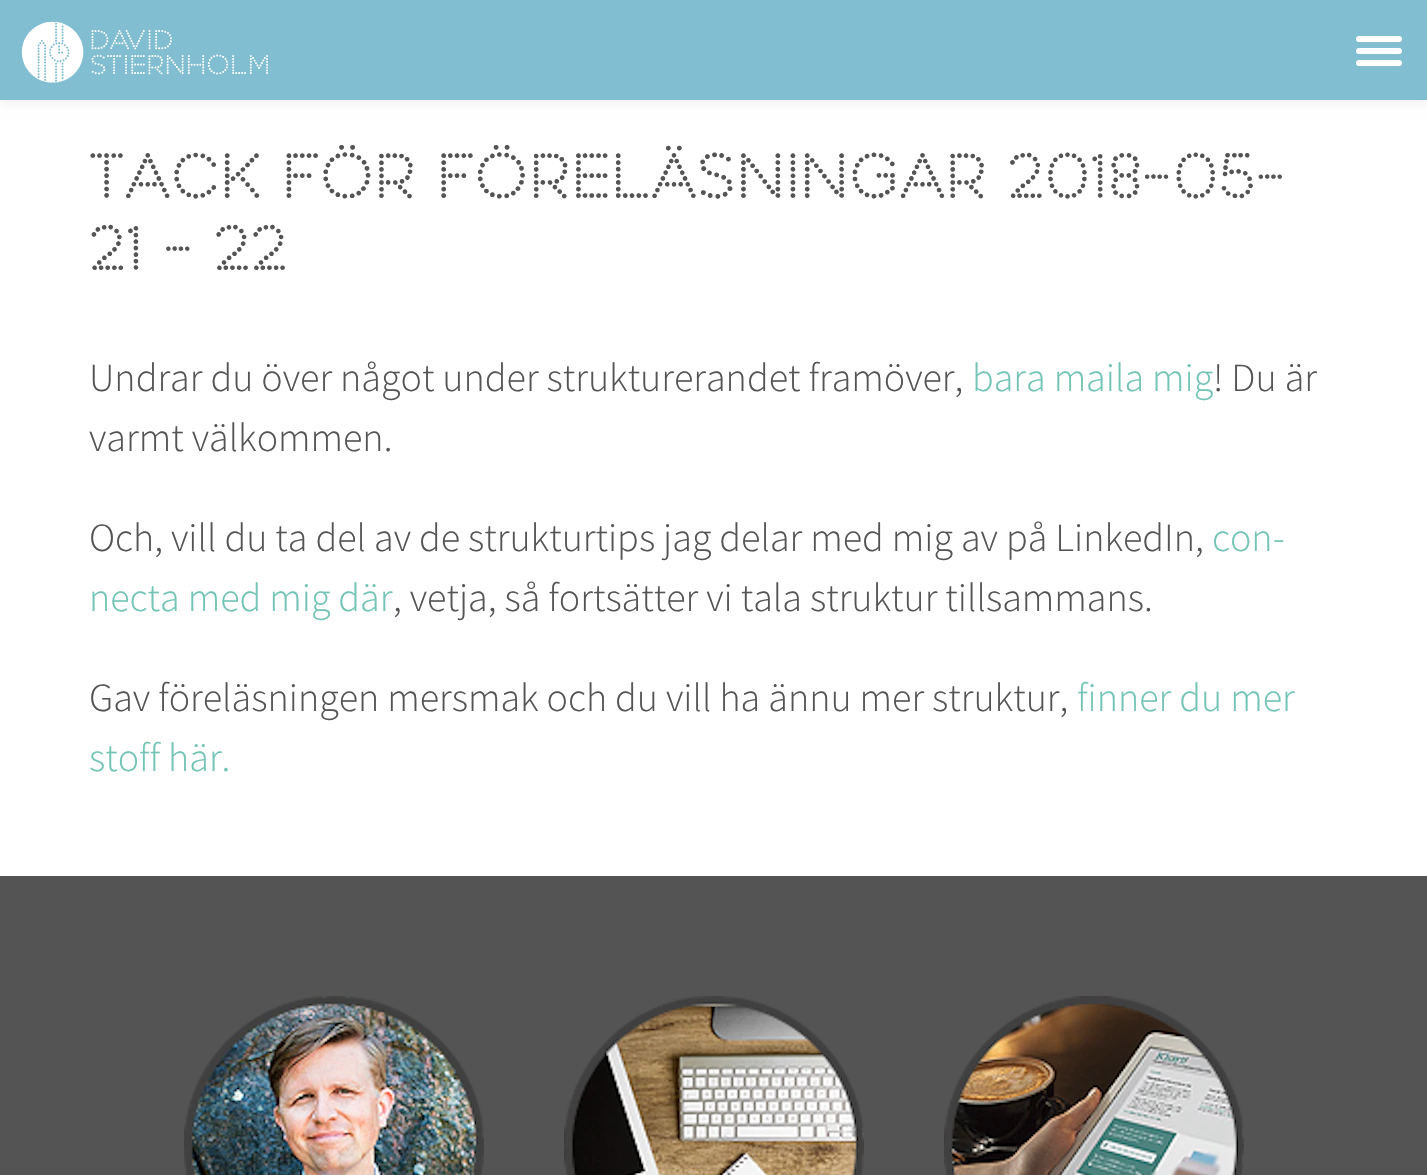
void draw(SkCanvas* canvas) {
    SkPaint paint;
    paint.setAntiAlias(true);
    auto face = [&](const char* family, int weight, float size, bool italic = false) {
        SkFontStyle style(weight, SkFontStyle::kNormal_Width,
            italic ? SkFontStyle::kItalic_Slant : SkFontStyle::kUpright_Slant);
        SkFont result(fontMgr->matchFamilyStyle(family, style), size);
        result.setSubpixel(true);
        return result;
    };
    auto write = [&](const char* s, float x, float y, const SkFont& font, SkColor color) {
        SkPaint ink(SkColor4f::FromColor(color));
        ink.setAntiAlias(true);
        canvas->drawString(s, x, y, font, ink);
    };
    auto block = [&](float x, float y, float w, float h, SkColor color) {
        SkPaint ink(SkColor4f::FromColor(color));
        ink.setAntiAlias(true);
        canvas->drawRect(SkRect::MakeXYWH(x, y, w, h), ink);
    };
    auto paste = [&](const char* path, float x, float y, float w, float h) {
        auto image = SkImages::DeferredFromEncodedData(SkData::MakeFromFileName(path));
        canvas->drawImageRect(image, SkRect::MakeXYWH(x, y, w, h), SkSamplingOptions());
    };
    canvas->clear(SK_ColorWHITE);
    paint.setColor(SkColorSetARGB(13, 0, 0, 0));
    paint.setMaskFilter(SkMaskFilter::MakeBlur(kNormal_SkBlurStyle, 5));
    canvas->drawRect(SkRect::MakeXYWH(0, 4, 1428, 100), paint);
    paint.setMaskFilter(nullptr);
    block(0, 0, 1427, 100, SkColorSetRGB(130, 190, 210));
    paste("pic1.png", 21, 21, 247, 62);
    paint.setStyle(SkPaint::kStroke_Style);
    paint.setStrokeWidth(6);
    paint.setStrokeCap(SkPaint::kRound_Cap);
    paint.setColor(SK_ColorWHITE);
    canvas->drawPath(SkPathBuilder().moveTo(1359, 63).lineTo(1399, 63).moveTo(1359, 51).lineTo(1399, 51).moveTo(1359, 39).lineTo(1399, 39).detach(), paint);
    auto kFont1 = face("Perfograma", 400, 60);
    write("Tack för föreläsningar 2018-05-", 89, 198, kFont1, SkColorSetRGB(84, 84, 84));
    write("21 - 22", 89, 270, kFont1, SkColorSetRGB(84, 84, 84));
    auto kFont2 = face("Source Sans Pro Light", 300, 40);
    write("Undrar du över något under strukturerandet framöver,", 89, 391, kFont2, SkColorSetRGB(84, 84, 84));
    write("bara maila mig", 972, 391, kFont2, SkColorSetRGB(115, 196, 182));
    write("! Du är", 1213, 391, kFont2, SkColorSetRGB(84, 84, 84));
    write("varmt välkommen.", 89, 451, kFont2, SkColorSetRGB(84, 84, 84));
    write("Och, vill du ta del av de strukturtips jag delar med mig av på LinkedIn,", 89, 551, kFont2, SkColorSetRGB(84, 84, 84));
    write("con-", 1212, 551, kFont2, SkColorSetRGB(115, 196, 182));
    write("necta med mig där", 89, 611, kFont2, SkColorSetRGB(115, 196, 182));
    write(", vetja, så fortsätter vi tala struktur tillsammans.", 393, 611, kFont2, SkColorSetRGB(84, 84, 84));
    write("Gav föreläsningen mersmak och du vill ha ännu mer struktur,", 89, 711, kFont2, SkColorSetRGB(84, 84, 84));
    write("finner du mer", 1077, 711, kFont2, SkColorSetRGB(115, 196, 182));
    write("stoff här.", 89, 771, kFont2, SkColorSetRGB(115, 196, 182));
    block(0, 876, 1427, 299, SkColorSetRGB(84, 84, 84));
    paste("pic2.png", 184, 996, 300, 179);
    paste("pic3.png", 564, 996, 300, 179);
    paste("pic4.png", 944, 996, 300, 179);
}
